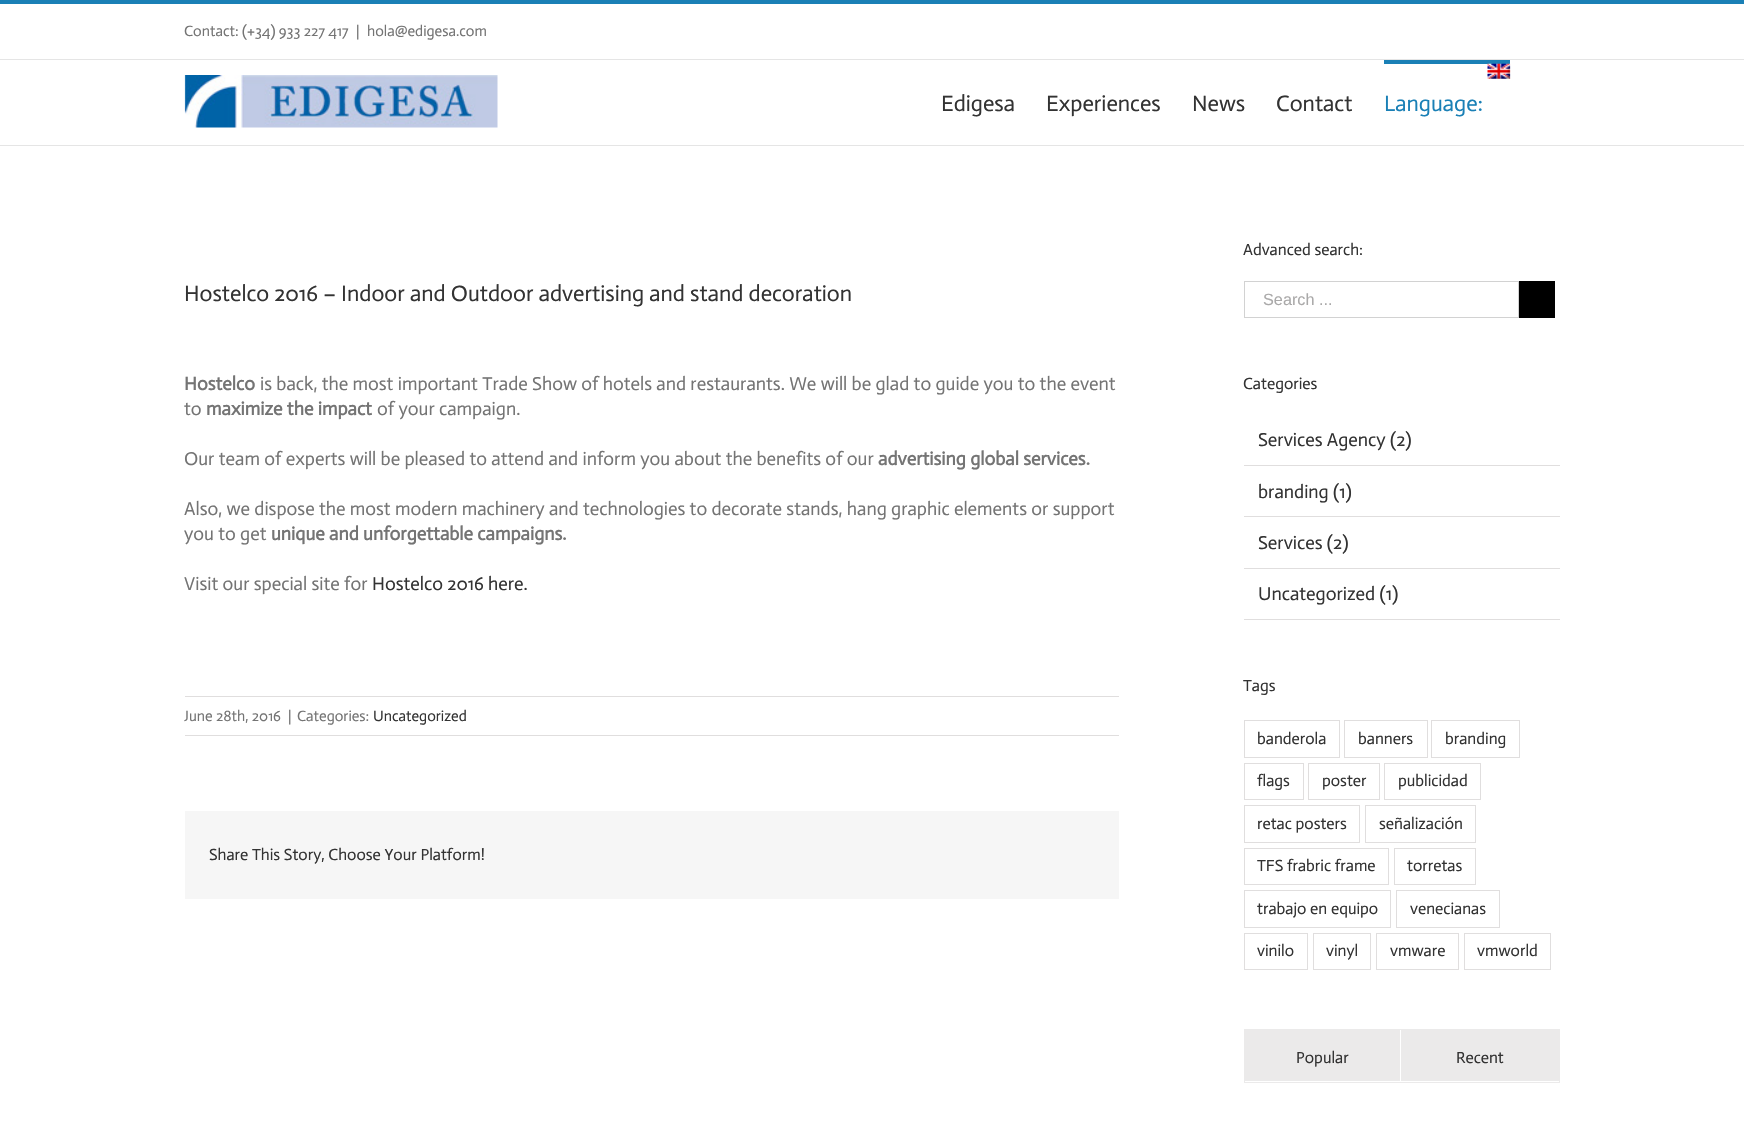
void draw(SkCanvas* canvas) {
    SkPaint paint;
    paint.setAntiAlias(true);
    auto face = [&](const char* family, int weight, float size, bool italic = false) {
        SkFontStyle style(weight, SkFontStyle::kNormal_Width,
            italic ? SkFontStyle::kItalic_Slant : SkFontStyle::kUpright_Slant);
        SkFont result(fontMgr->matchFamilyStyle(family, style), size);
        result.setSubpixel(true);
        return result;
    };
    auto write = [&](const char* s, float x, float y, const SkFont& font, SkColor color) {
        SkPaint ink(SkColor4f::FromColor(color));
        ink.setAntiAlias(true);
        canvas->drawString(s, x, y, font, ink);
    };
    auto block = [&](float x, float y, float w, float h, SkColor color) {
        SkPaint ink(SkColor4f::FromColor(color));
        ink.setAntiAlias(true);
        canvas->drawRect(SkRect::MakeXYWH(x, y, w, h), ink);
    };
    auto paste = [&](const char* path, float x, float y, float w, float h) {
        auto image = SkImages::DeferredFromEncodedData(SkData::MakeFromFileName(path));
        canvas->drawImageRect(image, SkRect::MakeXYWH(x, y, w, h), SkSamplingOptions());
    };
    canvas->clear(SK_ColorWHITE);
    block(0, 0, 1744, 4, SkColorSetRGB(26, 128, 182));
    block(0, 59, 1744, 1, SkColorSetRGB(229, 229, 229));
    auto kFont1 = face("Actor", 400, 15);
    write("Contact: (+34) 933 227 417", 184, 36, kFont1, SkColorSetRGB(116, 116, 116));
    write("|", 356, 36, kFont1, SkColorSetRGB(116, 116, 116));
    write("hola@edigesa.com", 367, 36, kFont1, SkColorSetRGB(116, 116, 116));
    block(0, 145, 1744, 1, SkColorSetRGB(229, 229, 229));
    paste("pic1.png", 184, 75, 314, 53);
    auto kFont2 = face("Actor", 400, 22.5f);
    write("Edigesa", 941, 111, kFont2, SkColorSetRGB(51, 51, 51));
    write("Experiences", 1046, 111, kFont2, SkColorSetRGB(51, 51, 51));
    write("News", 1192, 111, kFont2, SkColorSetRGB(51, 51, 51));
    write("Contact", 1276, 111, kFont2, SkColorSetRGB(51, 51, 51));
    block(1384, 60, 126, 4, SkColorSetRGB(26, 128, 182));
    paste("pic2.png", 1487, 63, 24, 16);
    write("Language:", 1384, 111, kFont2, SkColorSetRGB(26, 128, 182));
    write("Hostelco 2016 – Indoor and Outdoor advertising and stand decoration", 184, 301, kFont2, SkColorSetRGB(51, 51, 51));
    auto kFont3 = face("Actor", 700, 18.75f);
    write("Hostelco", 184, 390, kFont3, SkColorSetRGB(116, 116, 116));
    auto kFont4 = face("Actor", 400, 18.75f);
    write("is back, the most important Trade Show of hotels and restaurants. We will be glad to guide you to the event", 260, 390, kFont4, SkColorSetRGB(116, 116, 116));
    write("to", 184, 415, kFont4, SkColorSetRGB(116, 116, 116));
    write("maximize the impact", 206, 415, kFont3, SkColorSetRGB(116, 116, 116));
    write("of your campaign.", 377, 415, kFont4, SkColorSetRGB(116, 116, 116));
    write("Our team of experts will be pleased to attend and inform you about the benefits of our", 184, 465, kFont4, SkColorSetRGB(116, 116, 116));
    write("advertising global services.", 878, 465, kFont3, SkColorSetRGB(116, 116, 116));
    write("Also, we dispose the most modern machinery and technologies to decorate stands, hang graphic elements or support", 184, 515, kFont4, SkColorSetRGB(116, 116, 116));
    write("you to get", 184, 540, kFont4, SkColorSetRGB(116, 116, 116));
    write("unique and unforgettable campaigns.", 271, 540, kFont3, SkColorSetRGB(116, 116, 116));
    write("Visit our special site for", 184, 590, kFont4, SkColorSetRGB(116, 116, 116));
    write("Hostelco 2016 here.", 372, 590, kFont4, SkColorSetRGB(51, 51, 51));
    block(185, 696, 934, 1, SkColorSetRGB(224, 222, 222));
    block(185, 735, 934, 1, SkColorSetRGB(224, 222, 222));
    write("June 28th, 2016", 184, 721, kFont1, SkColorSetRGB(116, 116, 116));
    write("|", 288, 721, kFont1, SkColorSetRGB(116, 116, 116));
    write("Categories:", 297, 721, kFont1, SkColorSetRGB(116, 116, 116));
    write("Uncategorized", 373, 721, kFont1, SkColorSetRGB(51, 51, 51));
    block(185, 811, 934, 88, SkColorSetRGB(246, 246, 246));
    auto kFont5 = face("Actor", 400, 16.25f);
    write("Share This Story, Choose Your Platform!", 209, 860, kFont5, SkColorSetRGB(51, 51, 51));
    write("Advanced search:", 1243, 255, kFont5, SkColorSetRGB(51, 51, 51));
    paint.setStyle(SkPaint::kStroke_Style);
    paint.setStrokeWidth(1);
    paint.setColor(SkColorSetRGB(210, 210, 210));
    canvas->drawRect(SkRect::MakeXYWH(1244.5f, 281.5f, 274, 36), paint);
    auto kFont6 = face("Liberation Sans", 400, 16.25f);
    write("Search ...", 1263, 305, kFont6, SkColorSetRGB(170, 169, 169));
    block(1519, 281, 36, 37, SK_ColorBLACK);
    write("Categories", 1243, 389, kFont5, SkColorSetRGB(51, 51, 51));
    block(1244, 465, 316, 1, SkColorSetRGB(224, 222, 222));
    write("Services Agency (2)", 1258, 446, kFont4, SkColorSetRGB(51, 51, 51));
    block(1244, 516, 316, 1, SkColorSetRGB(224, 222, 222));
    write("branding (1)", 1258, 498, kFont4, SkColorSetRGB(51, 51, 51));
    block(1244, 568, 316, 1, SkColorSetRGB(224, 222, 222));
    write("Services (2)", 1258, 549, kFont4, SkColorSetRGB(51, 51, 51));
    block(1244, 619, 316, 1, SkColorSetRGB(224, 222, 222));
    write("Uncategorized (1)", 1258, 600, kFont4, SkColorSetRGB(51, 51, 51));
    write("Tags", 1243, 691, kFont5, SkColorSetRGB(51, 51, 51));
    paint.setColor(SkColorSetRGB(224, 222, 222));
    canvas->drawRect(SkRect::MakeXYWH(1244.5f, 720.5f, 95, 37), paint);
    write("banderola", 1257, 744, kFont5, SkColorSetRGB(51, 51, 51));
    canvas->drawRect(SkRect::MakeXYWH(1344.5f, 720.5f, 83, 37), paint);
    write("banners", 1358, 744, kFont5, SkColorSetRGB(51, 51, 51));
    canvas->drawRect(SkRect::MakeXYWH(1431.5f, 720.5f, 88, 37), paint);
    write("branding", 1445, 744, kFont5, SkColorSetRGB(51, 51, 51));
    canvas->drawRect(SkRect::MakeXYWH(1244.5f, 763.5f, 59, 36), paint);
    write("flags", 1257, 786, kFont5, SkColorSetRGB(51, 51, 51));
    canvas->drawRect(SkRect::MakeXYWH(1308.5f, 763.5f, 71, 36), paint);
    write("poster", 1322, 786, kFont5, SkColorSetRGB(51, 51, 51));
    canvas->drawRect(SkRect::MakeXYWH(1384.5f, 763.5f, 96, 36), paint);
    write("publicidad", 1398, 786, kFont5, SkColorSetRGB(51, 51, 51));
    canvas->drawRect(SkRect::MakeXYWH(1244.5f, 805.5f, 115, 37), paint);
    write("retac posters", 1257, 829, kFont5, SkColorSetRGB(51, 51, 51));
    canvas->drawRect(SkRect::MakeXYWH(1365.5f, 805.5f, 110, 37), paint);
    write("señalización", 1379, 829, kFont5, SkColorSetRGB(51, 51, 51));
    canvas->drawRect(SkRect::MakeXYWH(1244.5f, 848.5f, 144, 36), paint);
    write("TFS frabric frame", 1257, 871, kFont5, SkColorSetRGB(51, 51, 51));
    canvas->drawRect(SkRect::MakeXYWH(1394.5f, 848.5f, 81, 36), paint);
    write("torretas", 1407, 871, kFont5, SkColorSetRGB(51, 51, 51));
    canvas->drawRect(SkRect::MakeXYWH(1244.5f, 890.5f, 146, 37), paint);
    write("trabajo en equipo", 1257, 914, kFont5, SkColorSetRGB(51, 51, 51));
    canvas->drawRect(SkRect::MakeXYWH(1396.5f, 890.5f, 103, 37), paint);
    write("venecianas", 1410, 914, kFont5, SkColorSetRGB(51, 51, 51));
    canvas->drawRect(SkRect::MakeXYWH(1244.5f, 933.5f, 63, 36), paint);
    write("vinilo", 1257, 956, kFont5, SkColorSetRGB(51, 51, 51));
    canvas->drawRect(SkRect::MakeXYWH(1313.5f, 933.5f, 57, 36), paint);
    write("vinyl", 1326, 956, kFont5, SkColorSetRGB(51, 51, 51));
    canvas->drawRect(SkRect::MakeXYWH(1376.5f, 933.5f, 82, 36), paint);
    write("vmware", 1390, 956, kFont5, SkColorSetRGB(51, 51, 51));
    canvas->drawRect(SkRect::MakeXYWH(1464.5f, 933.5f, 86, 36), paint);
    write("vmworld", 1477, 956, kFont5, SkColorSetRGB(51, 51, 51));
    paint.setColor(SkColorSetRGB(235, 234, 234));
    canvas->drawRect(SkRect::MakeXYWH(1244.5f, 1029.5f, 315, 53), paint);
    block(1245, 1030, 155, 51, SkColorSetRGB(235, 234, 234));
    write("Popular", 1296, 1063, kFont5, SkColorSetRGB(51, 51, 51));
    block(1401, 1030, 158, 51, SkColorSetRGB(235, 234, 234));
    write("Recent", 1456, 1063, kFont5, SkColorSetRGB(51, 51, 51));
}
